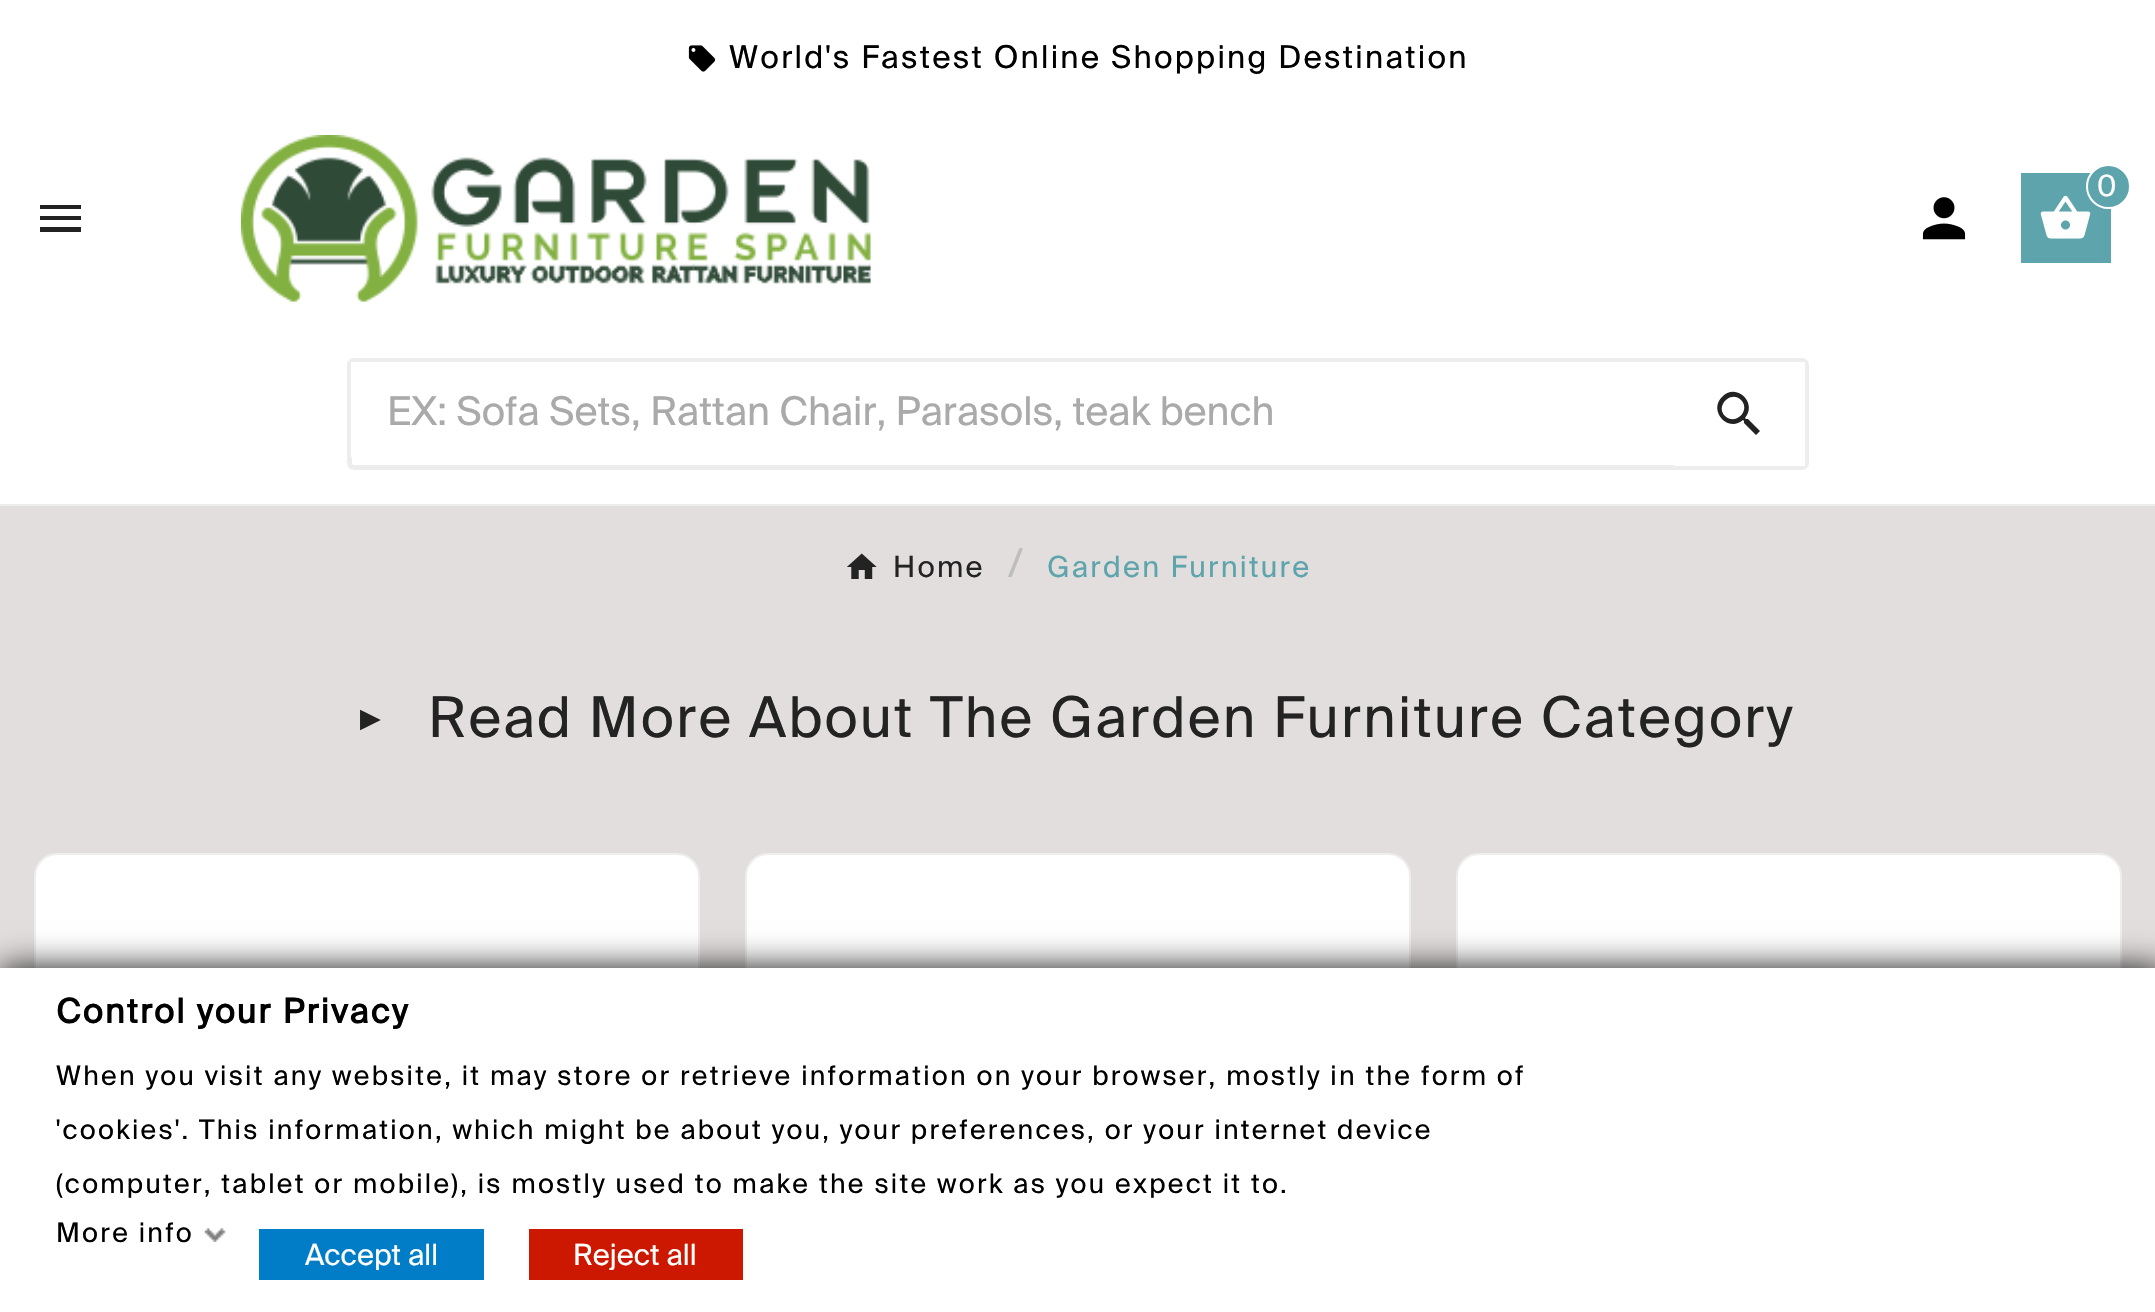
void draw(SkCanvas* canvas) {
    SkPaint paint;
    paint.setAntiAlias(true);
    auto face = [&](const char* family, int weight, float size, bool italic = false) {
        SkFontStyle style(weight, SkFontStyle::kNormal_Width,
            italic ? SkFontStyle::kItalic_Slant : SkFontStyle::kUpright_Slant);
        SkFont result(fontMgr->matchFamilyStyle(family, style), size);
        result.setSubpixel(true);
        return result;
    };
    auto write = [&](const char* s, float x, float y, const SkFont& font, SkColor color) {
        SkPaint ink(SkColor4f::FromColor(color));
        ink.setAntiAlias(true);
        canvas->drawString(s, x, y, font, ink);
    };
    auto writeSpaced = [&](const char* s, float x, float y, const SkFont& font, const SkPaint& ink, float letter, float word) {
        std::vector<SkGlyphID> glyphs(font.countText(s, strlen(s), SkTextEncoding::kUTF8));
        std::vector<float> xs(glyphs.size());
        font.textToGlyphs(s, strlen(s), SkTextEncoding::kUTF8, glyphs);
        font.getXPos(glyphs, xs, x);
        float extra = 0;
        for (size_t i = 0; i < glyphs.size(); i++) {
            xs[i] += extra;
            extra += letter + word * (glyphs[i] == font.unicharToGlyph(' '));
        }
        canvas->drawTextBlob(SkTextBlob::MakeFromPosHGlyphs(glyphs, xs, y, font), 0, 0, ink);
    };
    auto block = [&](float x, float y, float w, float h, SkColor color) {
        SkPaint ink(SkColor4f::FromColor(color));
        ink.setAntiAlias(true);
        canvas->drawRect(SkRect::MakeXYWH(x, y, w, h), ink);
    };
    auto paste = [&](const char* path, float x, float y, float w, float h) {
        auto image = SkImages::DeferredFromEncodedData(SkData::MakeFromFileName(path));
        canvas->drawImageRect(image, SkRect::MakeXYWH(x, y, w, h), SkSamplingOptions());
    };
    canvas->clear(SkColorSetRGB(227, 222, 222));
    block(0, 0, 2155, 504, SK_ColorWHITE);
    block(0, 504, 2155, 2, SkColorSetRGB(237, 237, 237));
    paste("pic1.png", 688, 45, 28, 27);
    auto kFont1 = face("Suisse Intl", 400, 31.5f);
    paint.setColor(SK_ColorBLACK);
    writeSpaced("World's Fastest Online Shopping Destination", 729, 68, kFont1, paint, 2.25f, 0);
    paste("pic2.png", 240, 135, 631, 167);
    block(2021, 173, 90, 90, SkColorSetRGB(93, 164, 172));
    paste("pic3.png", 2040, 195, 51, 44);
    paint.setColor(SkColorSetRGB(93, 164, 172));
    canvas->drawCircle(2108.5f, 186.5f, 21.5f, paint);
    paint.setStyle(SkPaint::kStroke_Style);
    paint.setStrokeWidth(2);
    paint.setColor(SK_ColorWHITE);
    canvas->drawCircle(2108.5f, 186.5f, 21.5f, paint);
    auto kFont2 = face("Suisse Intl", 400, 29.25f);
    paint.setStyle(SkPaint::kFill_Style);
    writeSpaced("0", 2097, 196, kFont2, paint, 2.25f, 0);
    paste("pic4.png", 1922, 197, 44, 43);
    paint.setColor(SkColorSetRGB(34, 34, 34));
    canvas->drawPath(SkPathBuilder().moveTo(40, 205).lineTo(81, 205).lineTo(81, 209).lineTo(40, 209).close().moveTo(40, 220).lineTo(40, 216).lineTo(81, 216).lineTo(81, 220).close().moveTo(40, 232).lineTo(40, 227).lineTo(81, 227).lineTo(81, 232).close().detach(), paint);
    paint.setStyle(SkPaint::kStroke_Style);
    paint.setStrokeWidth(5);
    paint.setColor(SkColorSetRGB(237, 237, 237));
    canvas->drawRoundRect(SkRect::MakeXYWH(349.5f, 360.5f, 1457, 107), 4.5f, 4.5f, paint);
    block(351, 362, 1323, 95, SK_ColorWHITE);
    auto kFont3 = face("Suisse Intl", 400, 39.6f);
    write("EX: Sofa Sets, Rattan Chair, Parasols, teak bench", 387, 425, kFont3, SkColorSetRGB(170, 170, 170));
    block(1674, 362, 131, 104, SK_ColorWHITE);
    paint.setStyle(SkPaint::kFill_Style);
    paint.setColor(SkColorSetRGB(34, 34, 34));
    canvas->drawPath(SkPathBuilder().moveTo(1725, 416).cubicTo(1736, 426, 1751, 410, 1741, 400).cubicTo(1731, 390, 1715, 406, 1725, 416).close().moveTo(1748, 419).lineTo(1760, 431).lineTo(1756, 435).lineTo(1744, 423).lineTo(1744, 421).lineTo(1743, 420).cubicTo(1728, 433, 1708, 411, 1722, 397).cubicTo(1736, 382, 1758, 403, 1745, 418).lineTo(1746, 419).close().detach(), paint);
    paste("pic5.png", 846, 553, 31, 26);
    paint.setColor(SkColorSetRGB(35, 35, 35));
    writeSpaced("Home", 893, 577, kFont2, paint, 2.25f, 0);
    paint.setColor(SkColorSetRGB(189, 189, 189));
    writeSpaced("/", 1008, 577, kFont3, paint, 2.25f, 0);
    paint.setColor(SkColorSetRGB(93, 164, 172));
    writeSpaced("Garden Furniture", 1047, 577, kFont2, paint, 2.25f, 0);
    auto kFont4 = face("DejaVu Sans", 400, 27);
    paint.setColor(SkColorSetRGB(35, 35, 35));
    writeSpaced("▶", 360, 727, kFont4, paint, 2.25f, 0);
    auto kFont5 = face("Suisse Intl", 400, 56.25f);
    writeSpaced("Read More About The Garden Furniture Category", 428, 737, kFont5, paint, 2.25f, 0);
    paint.setColor(SK_ColorWHITE);
    canvas->drawRoundRect(SkRect::MakeXYWH(35, 854, 664, 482), 22, 22, paint);
    paint.setStyle(SkPaint::kStroke_Style);
    paint.setStrokeWidth(2);
    paint.setColor(SkColorSetRGB(238, 238, 238));
    canvas->drawRoundRect(SkRect::MakeXYWH(35, 854, 664, 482), 22, 22, paint);
    paint.setStyle(SkPaint::kFill_Style);
    paint.setColor(SK_ColorWHITE);
    canvas->drawRoundRect(SkRect::MakeXYWH(746, 854, 664, 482), 22, 22, paint);
    paint.setStyle(SkPaint::kStroke_Style);
    paint.setColor(SkColorSetRGB(238, 238, 238));
    canvas->drawRoundRect(SkRect::MakeXYWH(746, 854, 664, 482), 22, 22, paint);
    paint.setStyle(SkPaint::kFill_Style);
    paint.setColor(SK_ColorWHITE);
    canvas->drawRoundRect(SkRect::MakeXYWH(1457, 854, 664, 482), 22, 22, paint);
    paint.setStyle(SkPaint::kStroke_Style);
    paint.setColor(SkColorSetRGB(238, 238, 238));
    canvas->drawRoundRect(SkRect::MakeXYWH(1457, 854, 664, 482), 22, 22, paint);
    paint.setStyle(SkPaint::kFill_Style);
    paint.setColor(SkColorSetRGB(18, 18, 18));
    paint.setMaskFilter(SkMaskFilter::MakeBlur(kNormal_SkBlurStyle, 16));
    canvas->drawRect(SkRect::MakeXYWH(0, 968, 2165, 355), paint);
    paint.setMaskFilter(nullptr);
    block(0, 968, 2155, 344, SK_ColorWHITE);
    auto kFont6 = face("Suisse Intl", 700, 33.75f);
    paint.setColor(SK_ColorBLACK);
    writeSpaced("Control your Privacy", 56, 1023, kFont6, paint, 2.25f, 0);
    auto kFont7 = face("Suisse Intl", 400, 27);
    writeSpaced("When you visit any website, it may store or retrieve information on your browser, mostly in the form of", 56, 1085, kFont7, paint, 2.25f, 0);
    writeSpaced("'cookies'. This information, which might be about you, your preferences, or your internet device", 56, 1139, kFont7, paint, 2.25f, 0);
    writeSpaced("(computer, tablet or mobile), is mostly used to make the site work as you expect it to.", 56, 1193, kFont7, paint, 2.25f, 0);
    writeSpaced("More info", 56, 1242, kFont7, paint, 2.25f, 0);
    paste("pic6.png", 204, 1228, 22, 14);
    block(259, 1229, 225, 51, SkColorSetRGB(0, 125, 198));
    write("Accept all", 305, 1265, kFont2, SK_ColorWHITE);
    block(529, 1229, 214, 51, SkColorSetRGB(204, 24, 0));
    write("Reject all", 573, 1265, kFont2, SK_ColorWHITE);
}
